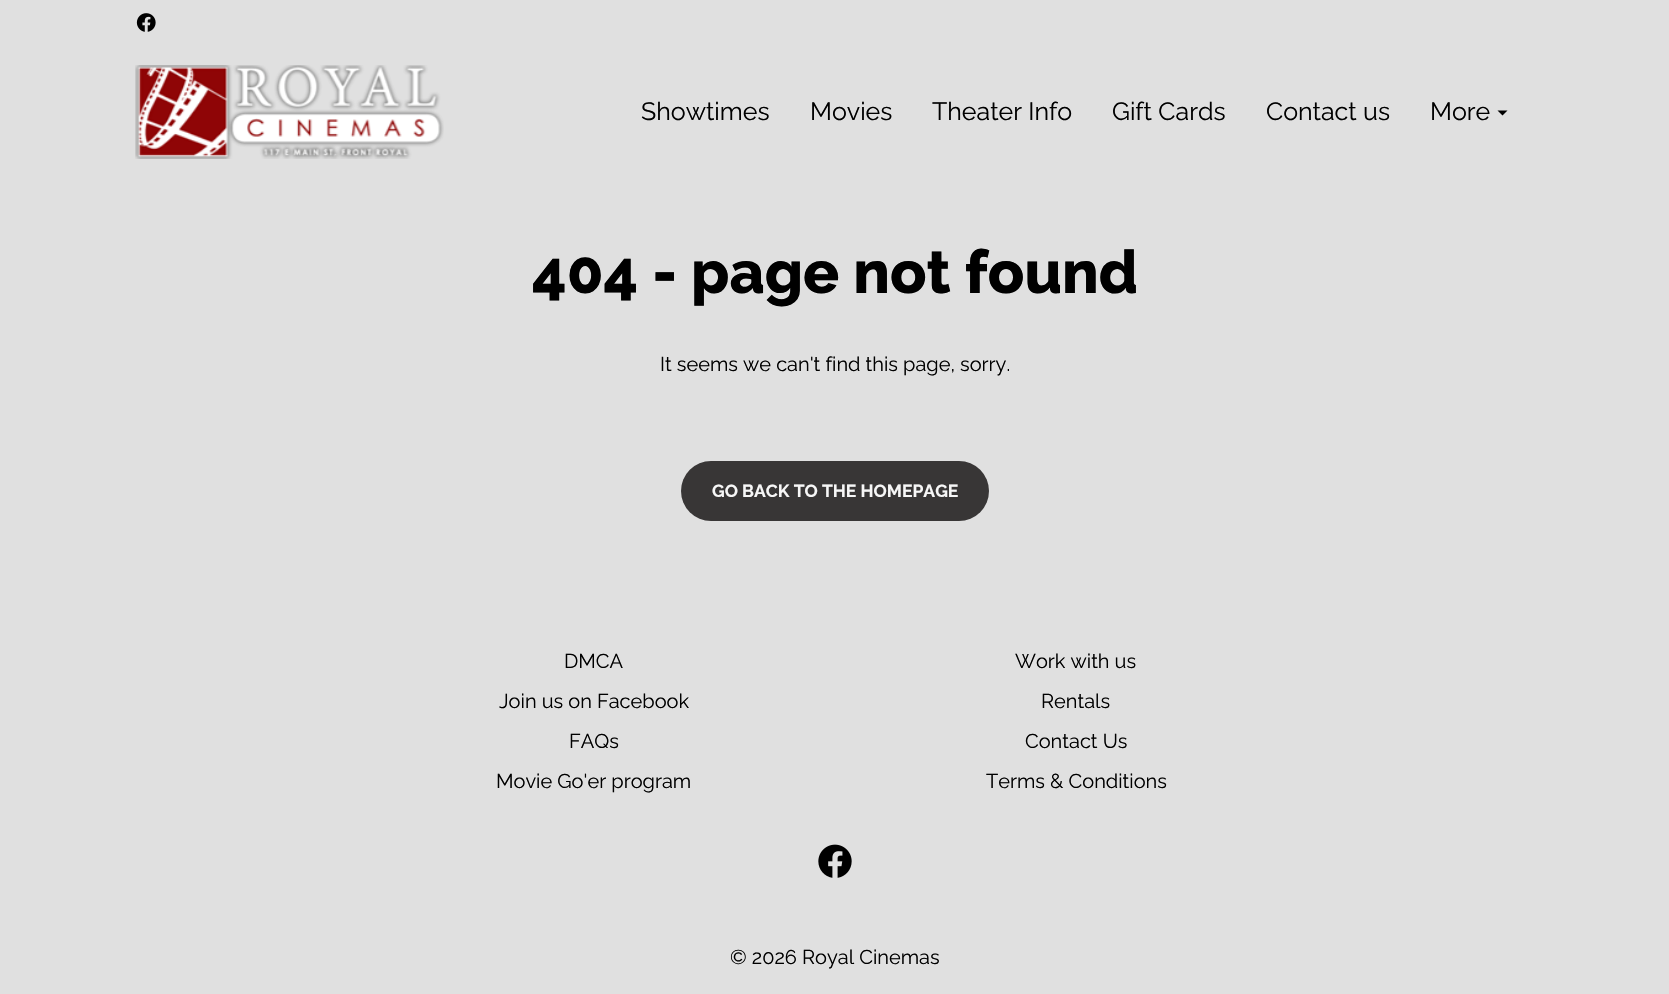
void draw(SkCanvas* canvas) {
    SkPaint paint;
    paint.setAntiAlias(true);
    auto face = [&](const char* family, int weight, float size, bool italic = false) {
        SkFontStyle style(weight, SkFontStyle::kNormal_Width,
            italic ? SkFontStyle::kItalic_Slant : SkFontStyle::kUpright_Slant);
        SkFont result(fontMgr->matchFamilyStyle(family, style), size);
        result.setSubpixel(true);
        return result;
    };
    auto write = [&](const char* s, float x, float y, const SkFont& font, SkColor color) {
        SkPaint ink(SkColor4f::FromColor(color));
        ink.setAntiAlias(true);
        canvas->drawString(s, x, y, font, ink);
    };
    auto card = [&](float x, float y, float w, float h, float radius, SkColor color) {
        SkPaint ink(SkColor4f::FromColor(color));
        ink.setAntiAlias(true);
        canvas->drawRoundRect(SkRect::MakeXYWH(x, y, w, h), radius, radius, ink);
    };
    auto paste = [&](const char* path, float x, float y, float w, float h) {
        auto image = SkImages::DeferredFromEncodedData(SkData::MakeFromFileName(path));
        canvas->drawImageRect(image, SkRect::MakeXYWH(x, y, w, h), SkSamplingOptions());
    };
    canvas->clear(SkColorSetRGB(224, 224, 224));
    paste("pic1.png", 136, 13, 20, 19);
    paste("pic2.png", 135, 65, 309, 94);
    auto kFont1 = face("Raleway", 100, 25);
    write("Showtimes", 641, 120, kFont1, SK_ColorBLACK);
    write("Movies", 810, 120, kFont1, SK_ColorBLACK);
    write("Theater Info", 932, 120, kFont1, SK_ColorBLACK);
    write("Gift Cards", 1112, 120, kFont1, SK_ColorBLACK);
    write("Contact us", 1266, 120, kFont1, SK_ColorBLACK);
    write("More", 1430, 120, kFont1, SK_ColorBLACK);
    paint.setColor(SK_ColorBLACK);
    canvas->drawPath(SkPathBuilder().moveTo(1497.5f, 110.5f).lineTo(1502.5f, 115.5f).lineTo(1507.5f, 110.5f).close().detach(), paint);
    auto kFont2 = face("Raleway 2", 100, 60);
    write("404 - page not found", 532, 293, kFont2, SK_ColorBLACK);
    auto kFont3 = face("Raleway", 100, 20);
    write("It seems we can't find this page, sorry.", 660, 371, kFont3, SK_ColorBLACK);
    card(681, 461, 308, 60, 30, SkColorSetRGB(56, 54, 54));
    auto kFont4 = face("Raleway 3", 100, 17.5f);
    write("GO BACK TO THE HOMEPAGE", 712, 497, kFont4, SkColorSetRGB(247, 247, 247));
    write("DMCA", 564, 668, kFont3, SK_ColorBLACK);
    write("Join us on Facebook", 499, 708, kFont3, SK_ColorBLACK);
    write("FAQs", 569, 748, kFont3, SK_ColorBLACK);
    write("Movie Go'er program", 496, 788, kFont3, SK_ColorBLACK);
    write("Work with us", 1015, 668, kFont3, SK_ColorBLACK);
    write("Rentals", 1041, 708, kFont3, SK_ColorBLACK);
    write("Contact Us", 1025, 748, kFont3, SK_ColorBLACK);
    write("Terms & Conditions", 986, 788, kFont3, SK_ColorBLACK);
    paste("pic3.png", 818, 844, 34, 34);
    write("© 2026 Royal Cinemas", 730, 964, kFont3, SK_ColorBLACK);
}
